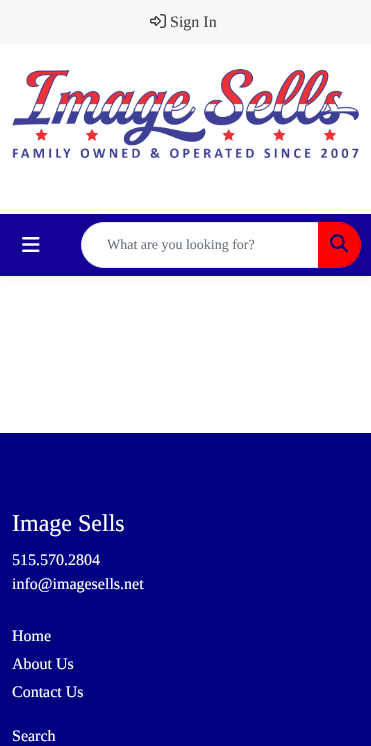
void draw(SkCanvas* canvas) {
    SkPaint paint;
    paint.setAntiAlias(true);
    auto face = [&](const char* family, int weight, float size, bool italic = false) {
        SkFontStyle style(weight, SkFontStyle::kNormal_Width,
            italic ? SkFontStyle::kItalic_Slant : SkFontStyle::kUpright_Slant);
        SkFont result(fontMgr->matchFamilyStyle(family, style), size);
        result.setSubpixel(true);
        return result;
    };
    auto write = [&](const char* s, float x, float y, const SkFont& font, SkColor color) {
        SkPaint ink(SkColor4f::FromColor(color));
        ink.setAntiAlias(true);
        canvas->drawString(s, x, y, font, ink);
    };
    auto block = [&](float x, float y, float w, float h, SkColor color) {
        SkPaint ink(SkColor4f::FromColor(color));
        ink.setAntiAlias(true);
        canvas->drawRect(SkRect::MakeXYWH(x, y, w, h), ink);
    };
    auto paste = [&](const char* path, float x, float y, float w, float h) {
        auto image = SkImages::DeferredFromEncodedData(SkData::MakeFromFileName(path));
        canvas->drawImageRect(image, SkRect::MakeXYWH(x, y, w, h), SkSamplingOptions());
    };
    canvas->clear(SK_ColorWHITE);
    block(0, 0, 371, 44, SkColorSetRGB(248, 248, 248));
    paste("pic1.png", 150, 14, 16, 14);
    auto kFont1 = face("Liberation Serif", 400, 16);
    write("Sign In", 170, 27, kFont1, SkColorSetRGB(68, 68, 68));
    paste("pic2.png", 12, 69, 347, 89);
    paint.setColor(SkColorSetARGB(18, 0, 0, 0));
    paint.setMaskFilter(SkMaskFilter::MakeBlur(kNormal_SkBlurStyle, 2));
    canvas->drawRect(SkRect::MakeXYWH(0, 216, 371, 62), paint);
    paint.setMaskFilter(nullptr);
    block(0, 214, 371, 62, SkColorSetRGB(19, 1, 149));
    paste("pic3.png", 22, 237, 18, 15);
    paint.setColor(SK_ColorWHITE);
    canvas->drawPath(SkPathBuilder().moveTo(104, 222.5f).lineTo(318.5f, 222.5f).lineTo(318.5f, 267.5f).lineTo(104, 267.5f).cubicTo(91.5f, 267.5f, 81.5f, 257.5f, 81.5f, 245).cubicTo(81.5f, 232.5f, 91.5f, 222.5f, 104, 222.5f).close().detach(), paint);
    paint.setStyle(SkPaint::kStroke_Style);
    paint.setStrokeWidth(1);
    paint.setColor(SkColorSetRGB(228, 228, 228));
    canvas->drawPath(SkPathBuilder().moveTo(104, 222.5f).lineTo(318.5f, 222.5f).lineTo(318.5f, 267.5f).lineTo(104, 267.5f).cubicTo(91.5f, 267.5f, 81.5f, 257.5f, 81.5f, 245).cubicTo(81.5f, 232.5f, 91.5f, 222.5f, 104, 222.5f).close().detach(), paint);
    auto kFont2 = face("Liberation Serif", 400, 14);
    write("What are you looking for?", 107, 249, kFont2, SkColorSetRGB(108, 117, 125));
    paint.setStyle(SkPaint::kFill_Style);
    paint.setColor(SkColorSetRGB(255, 0, 0));
    canvas->drawPath(SkPathBuilder().moveTo(318, 223).lineTo(338, 223).cubicTo(350, 223, 360, 233, 360, 245).cubicTo(360, 257, 350, 267, 338, 267).lineTo(318, 267).close().detach(), paint);
    canvas->drawPath(SkPathBuilder(SkPathFillType::kEvenOdd).moveTo(318, 222).lineTo(338, 222).cubicTo(351, 222, 361, 232, 361, 245).cubicTo(361, 258, 351, 268, 338, 268).lineTo(318, 268).close().moveTo(318, 223).lineTo(338, 223).cubicTo(350, 223, 360, 233, 360, 245).cubicTo(360, 257, 350, 267, 338, 267).lineTo(318, 267).close().detach(), paint);
    paste("pic4.png", 330, 234, 18, 19);
    block(0, 433, 371, 313, SkColorSetRGB(0, 0, 128));
    auto kFont3 = face("Liberation Serif", 400, 24);
    write("Image Sells", 12, 531, kFont3, SK_ColorWHITE);
    write("515.570.2804", 12, 565, kFont1, SK_ColorWHITE);
    write("info@imagesells.net", 12, 589, kFont1, SK_ColorWHITE);
    write("Home", 12, 641, kFont1, SK_ColorWHITE);
    write("About Us", 12, 669, kFont1, SK_ColorWHITE);
    write("Contact Us", 12, 697, kFont1, SK_ColorWHITE);
    write("Search", 12, 741, kFont1, SK_ColorWHITE);
}
